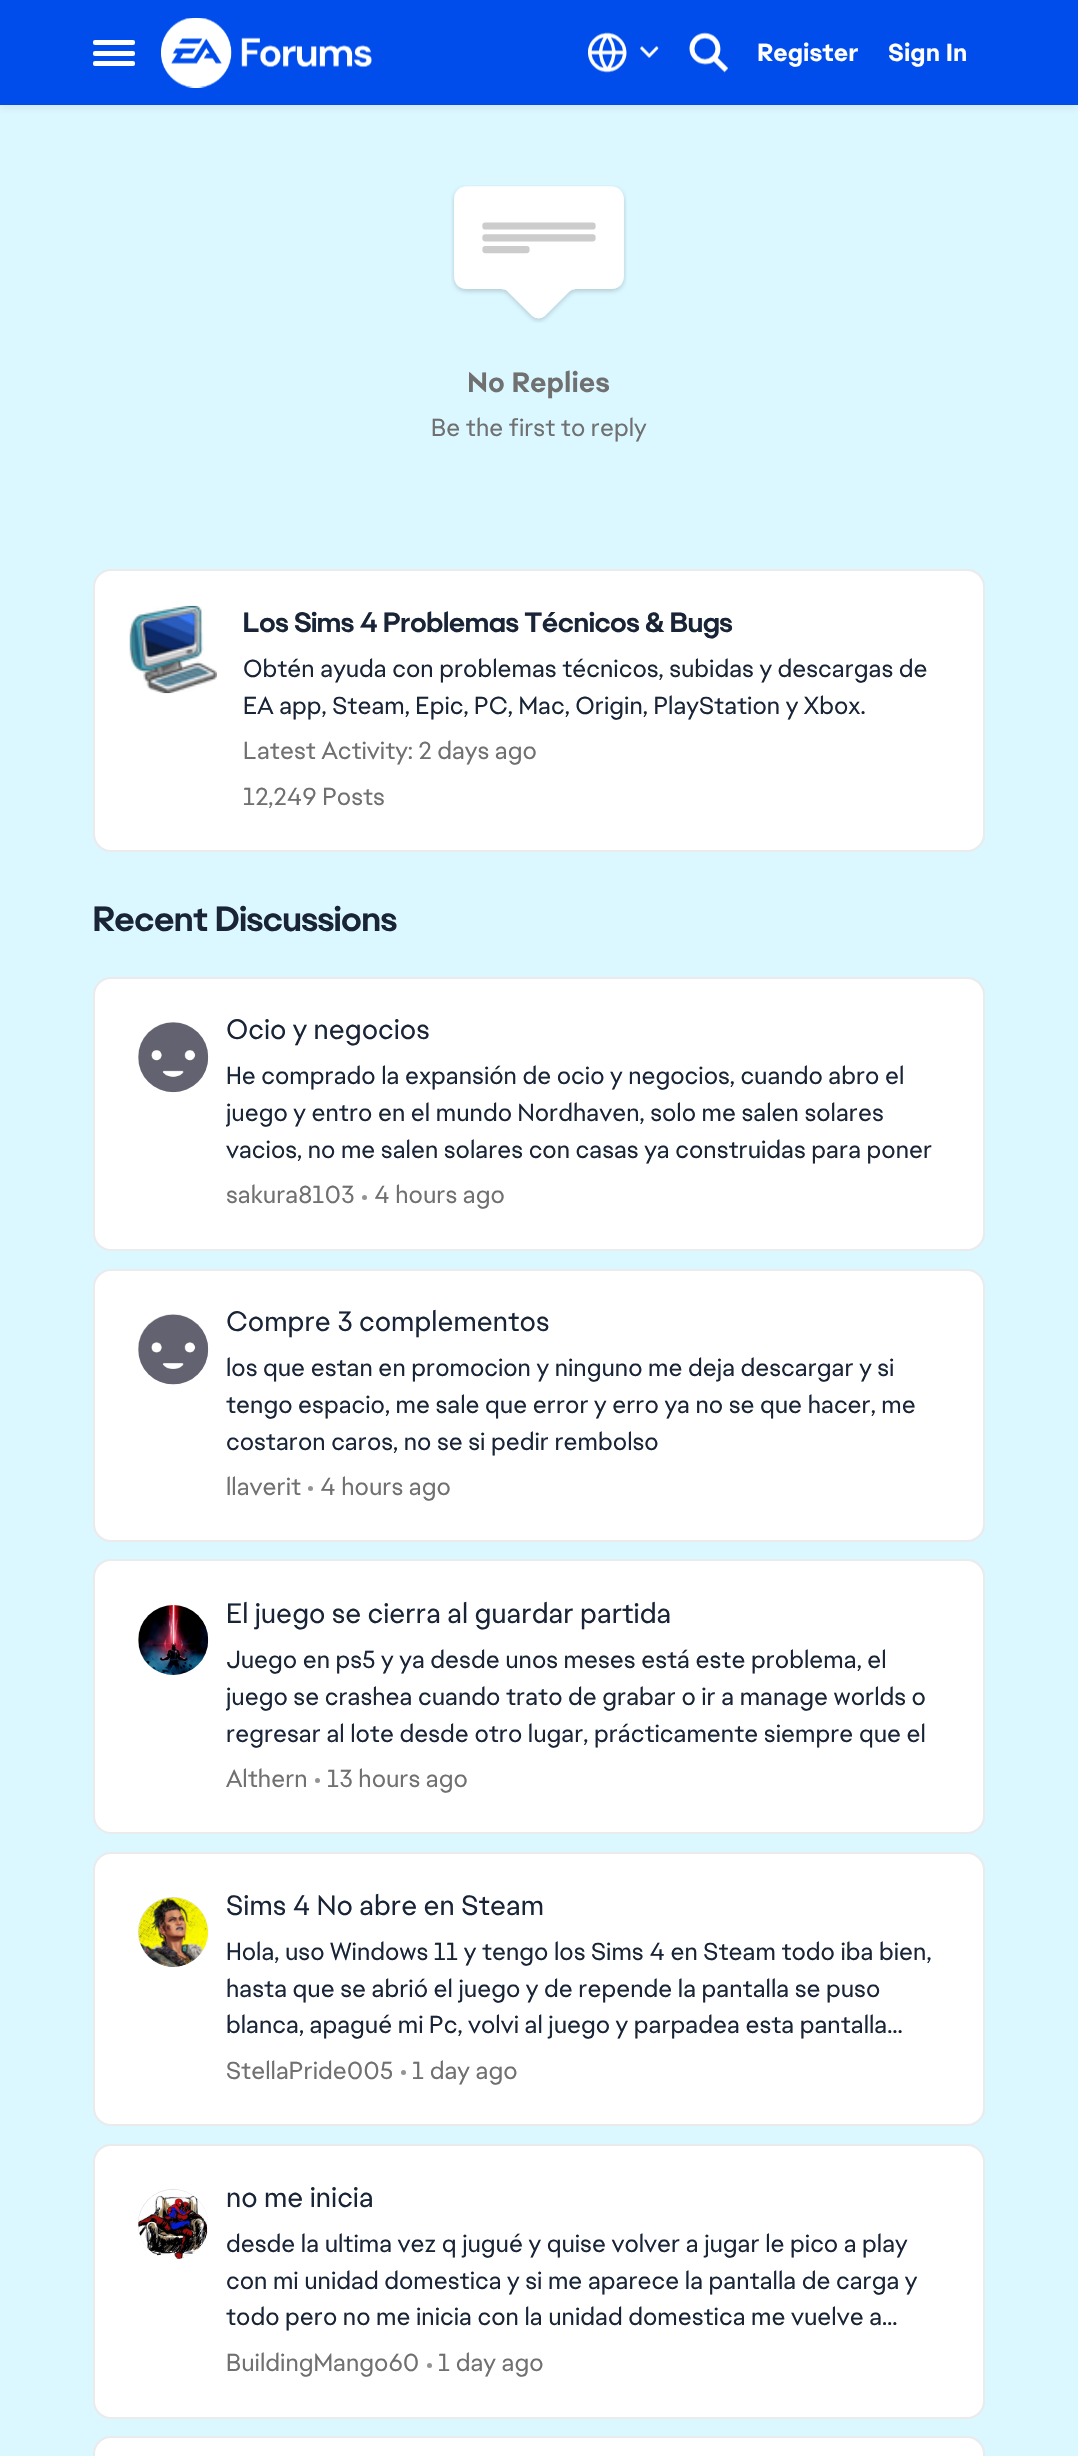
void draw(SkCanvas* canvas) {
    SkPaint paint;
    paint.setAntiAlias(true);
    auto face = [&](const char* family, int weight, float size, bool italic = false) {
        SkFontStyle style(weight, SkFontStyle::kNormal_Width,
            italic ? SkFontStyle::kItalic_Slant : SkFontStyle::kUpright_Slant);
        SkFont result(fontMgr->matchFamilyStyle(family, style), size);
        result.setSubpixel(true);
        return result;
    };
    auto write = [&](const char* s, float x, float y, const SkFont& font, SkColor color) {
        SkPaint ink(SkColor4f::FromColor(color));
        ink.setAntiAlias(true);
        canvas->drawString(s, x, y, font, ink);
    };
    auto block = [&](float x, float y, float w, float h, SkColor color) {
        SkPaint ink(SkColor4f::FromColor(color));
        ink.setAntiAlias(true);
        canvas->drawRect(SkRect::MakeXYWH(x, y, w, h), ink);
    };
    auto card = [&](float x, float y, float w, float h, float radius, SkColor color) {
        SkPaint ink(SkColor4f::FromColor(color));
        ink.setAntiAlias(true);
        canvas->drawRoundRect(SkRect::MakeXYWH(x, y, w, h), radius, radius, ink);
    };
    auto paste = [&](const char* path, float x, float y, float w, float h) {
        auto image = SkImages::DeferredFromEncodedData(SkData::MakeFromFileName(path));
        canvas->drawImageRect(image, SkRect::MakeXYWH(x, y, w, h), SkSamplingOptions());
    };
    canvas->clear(SkColorSetRGB(219, 247, 255));
    paint.setColor(SkColorSetARGB(15, 51, 51, 51));
    paint.setMaskFilter(SkMaskFilter::MakeBlur(kNormal_SkBlurStyle, 3.5f));
    canvas->drawRect(SkRect::MakeXYWH(0, 4, 1078, 105), paint);
    paint.setMaskFilter(nullptr);
    block(0, 0, 1078, 105, SkColorSetRGB(0, 77, 235));
    card(93, 40, 42, 5, 2, SK_ColorWHITE);
    card(93, 51, 42, 5, 2, SK_ColorWHITE);
    card(93, 61, 42, 5, 2, SK_ColorWHITE);
    paste("pic1.png", 161, 18, 211, 70);
    paste("pic2.png", 588, 32, 39, 41);
    paste("pic3.png", 640, 46, 19, 12);
    paste("pic4.png", 689, 32, 39, 41);
    auto kFont1 = face("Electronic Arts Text", 700, 24.5f);
    write("Register", 757, 61, kFont1, SK_ColorWHITE);
    write("Sign In", 888, 61, kFont1, SK_ColorWHITE);
    paste("pic5.png", 451, 185, 176, 138);
    auto kFont2 = face("Electronic Arts Text", 700, 28);
    write("No Replies", 467, 392, kFont2, SkColorSetRGB(112, 112, 112));
    auto kFont3 = face("Electronic Arts Text", 400, 24.5f);
    write("Be the first to reply", 431, 436, kFont3, SkColorSetRGB(112, 112, 112));
    card(93, 569, 892, 283, 18, SK_ColorWHITE);
    paint.setStyle(SkPaint::kStroke_Style);
    paint.setStrokeWidth(2);
    paint.setColor(SkColorSetARGB(20, 0, 0, 0));
    canvas->drawRoundRect(SkRect::MakeXYWH(94, 570, 890, 281), 17, 17, paint);
    paste("pic6.png", 129, 605, 88, 89);
    auto kFont4 = face("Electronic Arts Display", 700, 28);
    write("Los Sims 4 Problemas Técnicos & Bugs", 243, 632, kFont4, SkColorSetRGB(25, 37, 55));
    write("Obtén ayuda con problemas técnicos, subidas y descargas de", 243, 677, kFont3, SkColorSetRGB(25, 37, 55));
    write("EA app, Steam, Epic, PC, Mac, Origin, PlayStation y Xbox.", 243, 714, kFont3, SkColorSetRGB(25, 37, 55));
    write("Latest Activity: 2 days ago", 243, 759, kFont3, SkColorSetRGB(112, 112, 112));
    write("12,249 Posts", 243, 805, kFont3, SkColorSetRGB(112, 112, 112));
    auto kFont5 = face("Electronic Arts Display", 700, 35);
    write("Recent Discussions", 93, 931, kFont5, SkColorSetRGB(25, 37, 55));
    card(93, 977, 892, 274, 18, SK_ColorWHITE);
    canvas->drawRoundRect(SkRect::MakeXYWH(94, 978, 890, 272), 17, 17, paint);
    paint.setStyle(SkPaint::kFill_Style);
    paint.setColor(SkColorSetRGB(217, 217, 217));
    canvas->drawCircle(173, 1057, 35, paint);
    paste("pic7.png", 138, 1022, 71, 71);
    auto kFont6 = face("Electronic Arts Text", 400, 28);
    write("Ocio y negocios", 226, 1039, kFont6, SkColorSetRGB(25, 37, 55));
    write("He comprado la expansión de ocio y negocios, cuando abro el", 226, 1084, kFont3, SkColorSetRGB(25, 37, 55));
    canvas->save();
    canvas->clipRect(SkRect::MakeXYWH(226, 1059, 714, 110));
    write("juego y entro en el mundo Nordhaven, solo me salen solares", 226, 1121, kFont3, SkColorSetRGB(25, 37, 55));
    canvas->restore();
    write("vacios, no me salen solares con casas ya construidas para poner", 226, 1158, kFont3, SkColorSetRGB(25, 37, 55));
    write("sakura8103", 226, 1203, kFont3, SkColorSetRGB(112, 112, 112));
    paint.setColor(SkColorSetRGB(148, 148, 148));
    canvas->drawCircle(364.5f, 1197.5f, 2.5f, paint);
    write("4 hours ago", 374, 1203, kFont3, SkColorSetRGB(112, 112, 112));
    card(93, 1269, 892, 273, 18, SK_ColorWHITE);
    paint.setStyle(SkPaint::kStroke_Style);
    paint.setColor(SkColorSetARGB(20, 0, 0, 0));
    canvas->drawRoundRect(SkRect::MakeXYWH(94, 1270, 890, 271), 17, 17, paint);
    paint.setStyle(SkPaint::kFill_Style);
    paint.setColor(SkColorSetRGB(217, 217, 217));
    canvas->drawCircle(173, 1349, 35, paint);
    paste("pic8.png", 138, 1314, 71, 71);
    write("Compre 3 complementos", 226, 1331, kFont6, SkColorSetRGB(25, 37, 55));
    write("los que estan en promocion y ninguno me deja descargar y si", 226, 1376, kFont3, SkColorSetRGB(25, 37, 55));
    write("tengo espacio, me sale que error y erro ya no se que hacer, me", 226, 1413, kFont3, SkColorSetRGB(25, 37, 55));
    write("costaron caros, no se si pedir rembolso", 226, 1450, kFont3, SkColorSetRGB(25, 37, 55));
    write("llaverit", 226, 1495, kFont3, SkColorSetRGB(112, 112, 112));
    paint.setColor(SkColorSetRGB(148, 148, 148));
    canvas->drawCircle(310.5f, 1488.5f, 2.5f, paint);
    write("4 hours ago", 320, 1495, kFont3, SkColorSetRGB(112, 112, 112));
    card(93, 1559, 892, 275, 18, SK_ColorWHITE);
    paint.setStyle(SkPaint::kStroke_Style);
    paint.setColor(SkColorSetARGB(20, 0, 0, 0));
    canvas->drawRoundRect(SkRect::MakeXYWH(94, 1560, 890, 273), 17, 17, paint);
    paint.setStyle(SkPaint::kFill_Style);
    paint.setColor(SkColorSetRGB(217, 217, 217));
    canvas->drawCircle(173, 1640, 35, paint);
    paste("pic9.png", 138, 1605, 71, 70);
    write("El juego se cierra al guardar partida", 226, 1623, kFont6, SkColorSetRGB(25, 37, 55));
    write("Juego en ps5 y ya desde unos meses está este problema, el", 226, 1668, kFont3, SkColorSetRGB(25, 37, 55));
    canvas->save();
    canvas->clipRect(SkRect::MakeXYWH(226, 1642, 714, 110));
    write("juego se crashea cuando trato de grabar o ir a manage worlds o", 226, 1705, kFont3, SkColorSetRGB(25, 37, 55));
    canvas->restore();
    write("regresar al lote desde otro lugar, prácticamente siempre que el", 226, 1742, kFont3, SkColorSetRGB(25, 37, 55));
    write("Althern", 226, 1787, kFont3, SkColorSetRGB(112, 112, 112));
    paint.setColor(SkColorSetRGB(148, 148, 148));
    canvas->drawCircle(317.5f, 1780.5f, 2.5f, paint);
    write("13 hours ago", 327, 1787, kFont3, SkColorSetRGB(112, 112, 112));
    card(93, 1852, 892, 274, 18, SK_ColorWHITE);
    paint.setStyle(SkPaint::kStroke_Style);
    paint.setColor(SkColorSetARGB(20, 0, 0, 0));
    canvas->drawRoundRect(SkRect::MakeXYWH(94, 1853, 890, 272), 17, 17, paint);
    paint.setStyle(SkPaint::kFill_Style);
    paint.setColor(SkColorSetRGB(217, 217, 217));
    canvas->drawCircle(173, 1932, 35, paint);
    paste("pic10.png", 138, 1897, 70, 70);
    write("Sims 4 No abre en Steam", 226, 1915, kFont6, SkColorSetRGB(25, 37, 55));
    write("Hola, uso Windows 11 y tengo los Sims 4 en Steam todo iba bien,", 226, 1960, kFont3, SkColorSetRGB(25, 37, 55));
    write("hasta que se abrió el juego y de repende la pantalla se puso", 226, 1997, kFont3, SkColorSetRGB(25, 37, 55));
    write("blanca, apagué mi Pc, volvi al juego y parpadea esta pantalla…", 226, 2033, kFont3, SkColorSetRGB(25, 37, 55));
    write("StellaPride005", 226, 2079, kFont3, SkColorSetRGB(112, 112, 112));
    paint.setColor(SkColorSetRGB(148, 148, 148));
    canvas->drawCircle(403.5f, 2072.5f, 2.5f, paint);
    write("1 day ago", 412, 2079, kFont3, SkColorSetRGB(112, 112, 112));
    card(93, 2144, 892, 275, 18, SK_ColorWHITE);
    paint.setStyle(SkPaint::kStroke_Style);
    paint.setColor(SkColorSetARGB(20, 0, 0, 0));
    canvas->drawRoundRect(SkRect::MakeXYWH(94, 2145, 890, 273), 17, 17, paint);
    paint.setStyle(SkPaint::kFill_Style);
    paint.setColor(SkColorSetRGB(217, 217, 217));
    canvas->drawCircle(173, 2224, 35, paint);
    paste("pic11.png", 138, 2189, 70, 70);
    write("no me inicia", 226, 2207, kFont6, SkColorSetRGB(25, 37, 55));
    write("desde la ultima vez q jugué y quise volver a jugar le pico a play", 226, 2252, kFont3, SkColorSetRGB(25, 37, 55));
    write("con mi unidad domestica y si me aparece la pantalla de carga y", 226, 2289, kFont3, SkColorSetRGB(25, 37, 55));
    write("todo pero no me inicia con la unidad domestica me vuelve a…", 226, 2325, kFont3, SkColorSetRGB(25, 37, 55));
    write("BuildingMango60", 226, 2371, kFont3, SkColorSetRGB(112, 112, 112));
    paint.setColor(SkColorSetRGB(148, 148, 148));
    canvas->drawCircle(429.5f, 2365.5f, 2.5f, paint);
    write("1 day ago", 438, 2371, kFont3, SkColorSetRGB(112, 112, 112));
    card(93, 2436, 892, 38, 18, SK_ColorWHITE);
    paint.setStyle(SkPaint::kStroke_Style);
    paint.setColor(SkColorSetARGB(20, 0, 0, 0));
    canvas->drawRoundRect(SkRect::MakeXYWH(94, 2437, 890, 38), 17, 17, paint);
}
